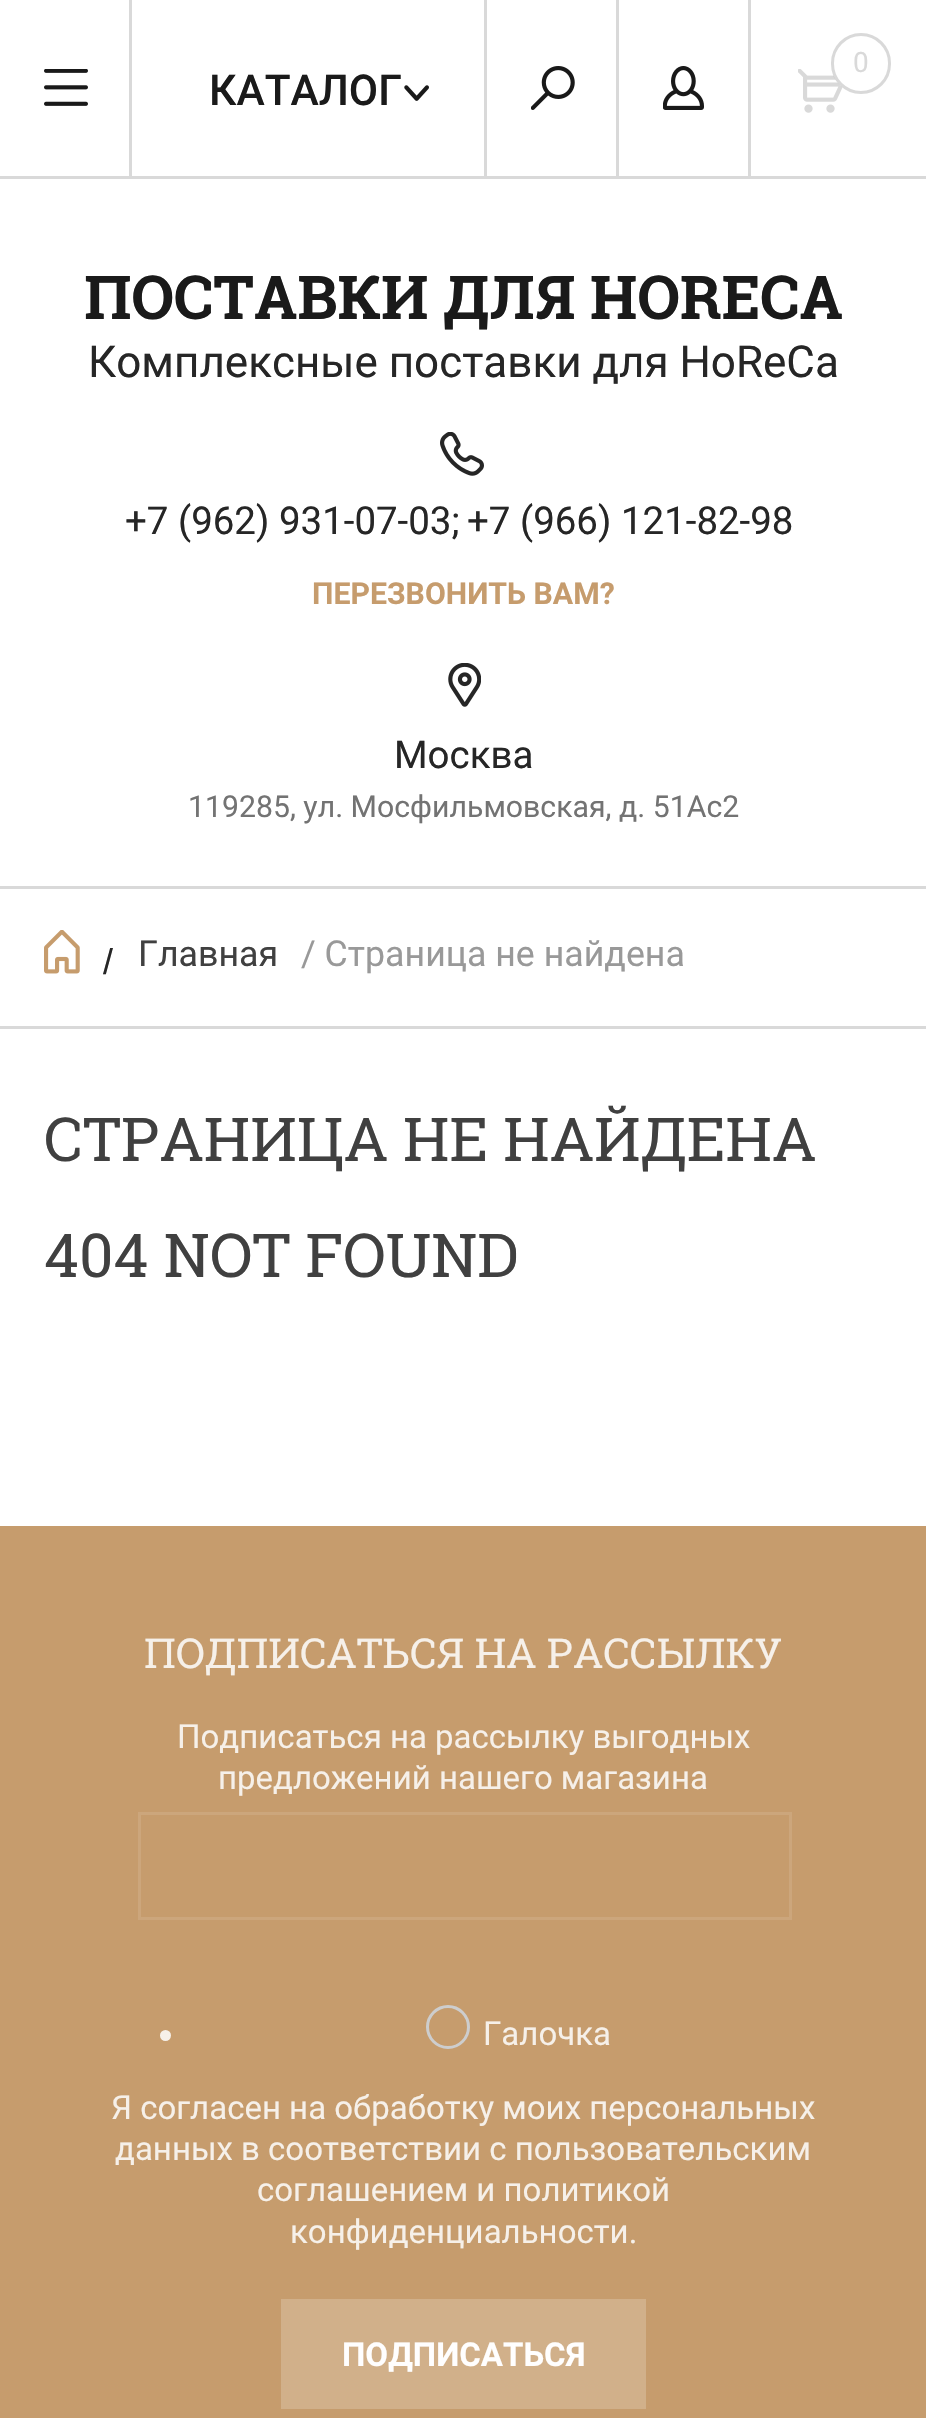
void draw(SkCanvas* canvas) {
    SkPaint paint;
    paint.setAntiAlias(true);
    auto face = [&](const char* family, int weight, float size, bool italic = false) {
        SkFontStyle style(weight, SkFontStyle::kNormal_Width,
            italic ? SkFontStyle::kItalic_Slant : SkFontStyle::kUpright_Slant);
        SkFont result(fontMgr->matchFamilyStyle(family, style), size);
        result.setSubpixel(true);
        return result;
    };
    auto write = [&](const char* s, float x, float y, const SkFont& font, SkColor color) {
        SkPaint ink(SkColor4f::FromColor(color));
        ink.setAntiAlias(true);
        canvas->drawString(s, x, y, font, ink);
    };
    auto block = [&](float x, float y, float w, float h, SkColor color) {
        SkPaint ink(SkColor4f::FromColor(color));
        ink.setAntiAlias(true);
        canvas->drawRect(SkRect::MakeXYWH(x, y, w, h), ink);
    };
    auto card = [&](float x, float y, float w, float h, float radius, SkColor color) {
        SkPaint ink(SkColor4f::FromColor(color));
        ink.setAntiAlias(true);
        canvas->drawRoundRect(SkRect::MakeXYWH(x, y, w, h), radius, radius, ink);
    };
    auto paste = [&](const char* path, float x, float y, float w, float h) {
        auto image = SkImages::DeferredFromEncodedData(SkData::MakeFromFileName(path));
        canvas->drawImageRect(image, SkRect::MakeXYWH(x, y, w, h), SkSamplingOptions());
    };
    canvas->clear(SK_ColorWHITE);
    block(0, 176, 926, 3, SkColorSetRGB(217, 217, 217));
    paste("pic1.png", 44, 69, 44, 37);
    block(129, 0, 3, 176, SkColorSetRGB(217, 217, 217));
    block(484, 0, 3, 176, SkColorSetRGB(217, 217, 217));
    paste("pic2.png", 531, 66, 44, 44);
    paste("pic3.png", 663, 66, 41, 44);
    block(616, 0, 3, 176, SkColorSetRGB(217, 217, 217));
    paste("pic4.png", 798, 69, 45, 44);
    block(748, 0, 3, 176, SkColorSetRGB(217, 217, 217));
    card(831, 33, 60, 61, 30, SK_ColorWHITE);
    paint.setStyle(SkPaint::kStroke_Style);
    paint.setStrokeWidth(3);
    paint.setColor(SkColorSetARGB(38, 0, 0, 0));
    canvas->drawRoundRect(SkRect::MakeXYWH(832.5f, 34.5f, 57, 58), 28.5f, 28.5f, paint);
    auto kFont1 = face("Roboto", 400, 28);
    write("0", 853, 72, kFont1, SkColorSetRGB(217, 217, 217));
    auto kFont2 = face("Roboto", 500, 42.5f);
    write("КАТАЛОГ", 209, 105, kFont2, SkColorSetRGB(26, 26, 26));
    paste("pic5.png", 404, 85, 25, 16);
    auto kFont3 = face("Roboto Slab", 700, 60.5f);
    write("ПОСТАВКИ ДЛЯ HORECA", 84, 319, kFont3, SkColorSetRGB(26, 26, 26));
    auto kFont4 = face("Roboto", 400, 44);
    write("Комплексные поставки для HoReCa", 88, 377, kFont4, SkColorSetRGB(38, 38, 38));
    paste("pic6.png", 440, 432, 44, 44);
    auto kFont5 = face("Roboto", 400, 38.5f);
    write("+7 (962) 931-07-03;", 125, 534, kFont5, SkColorSetRGB(38, 38, 38));
    write("+7 (966) 121-82-98", 467, 534, kFont5, SkColorSetRGB(38, 38, 38));
    auto kFont6 = face("Roboto", 700, 30.25f);
    write("ПЕРЕЗВОНИТЬ ВАМ?", 312, 604, kFont6, SkColorSetRGB(198, 156, 109));
    paste("pic7.png", 448, 663, 33, 44);
    write("Москва", 394, 768, kFont5, SkColorSetRGB(38, 38, 38));
    auto kFont7 = face("Roboto", 400, 30.25f);
    write("119285, ул. Мосфильмовская, д. 51Ac2", 188, 817, kFont7, SkColorSetRGB(115, 115, 115));
    block(0, 886, 926, 3, SkColorSetRGB(217, 217, 217));
    block(0, 1026, 926, 3, SkColorSetRGB(217, 217, 217));
    paste("pic8.png", 44, 930, 36, 44);
    auto kFont8 = face("Liberation Sans", 400, 35.75f);
    write("/", 103, 974, kFont8, SkColorSetRGB(38, 38, 38));
    auto kFont9 = face("Roboto", 400, 35.75f);
    write("Главная", 138, 966, kFont9, SkColorSetRGB(64, 64, 64));
    write("/ Страница не найдена", 301, 966, kFont9, SkColorSetRGB(153, 153, 153));
    auto kFont10 = face("Roboto Slab", 400, 60.5f);
    write("СТРАНИЦА НЕ НАЙДЕНА", 44, 1161, kFont10, SkColorSetRGB(64, 64, 64));
    write("404 NOT FOUND", 44, 1277, kFont10, SkColorSetRGB(64, 64, 64));
    block(0, 1526, 926, 892, SkColorSetRGB(198, 156, 109));
    auto kFont11 = face("Roboto Slab", 400, 41.25f);
    write("ПОДПИСАТЬСЯ НА РАССЫЛКУ", 144, 1668, kFont11, SkColorSetRGB(246, 240, 233));
    auto kFont12 = face("Roboto", 400, 33);
    write("Подписаться на рассылку выгодных", 177, 1748, kFont12, SkColorSetRGB(246, 240, 233));
    write("предложений нашего магазина", 218, 1789, kFont12, SkColorSetRGB(246, 240, 233));
    paint.setColor(SkColorSetRGB(204, 166, 124));
    canvas->drawRect(SkRect::MakeXYWH(139.5f, 1813.5f, 651, 105), paint);
    paint.setStyle(SkPaint::kFill_Style);
    paint.setColor(SkColorSetRGB(246, 240, 233));
    canvas->drawCircle(165.5f, 2035.5f, 5.5f, paint);
    paint.setStyle(SkPaint::kStroke_Style);
    paint.setColor(SkColorSetRGB(205, 205, 205));
    canvas->drawCircle(448, 2027, 20.5f, paint);
    write("Галочка", 483, 2045, kFont12, SkColorSetRGB(246, 240, 233));
    write("Я согласен на обработку моих персональных", 111, 2119, kFont12, SkColorSetRGB(246, 240, 233));
    write("данных в соответствии с пользовательским", 115, 2160, kFont12, SkColorSetRGB(246, 240, 233));
    write("соглашением и политикой", 257, 2201, kFont12, SkColorSetRGB(246, 240, 233));
    write("конфиденциальности.", 290, 2243, kFont12, SkColorSetRGB(246, 240, 233));
    block(281, 2299, 365, 110, SkColorSetRGB(209, 176, 138));
    auto kFont13 = face("Roboto", 700, 33);
    write("ПОДПИСАТЬСЯ", 342, 2366, kFont13, SkColorSetRGB(255, 254, 254));
}
